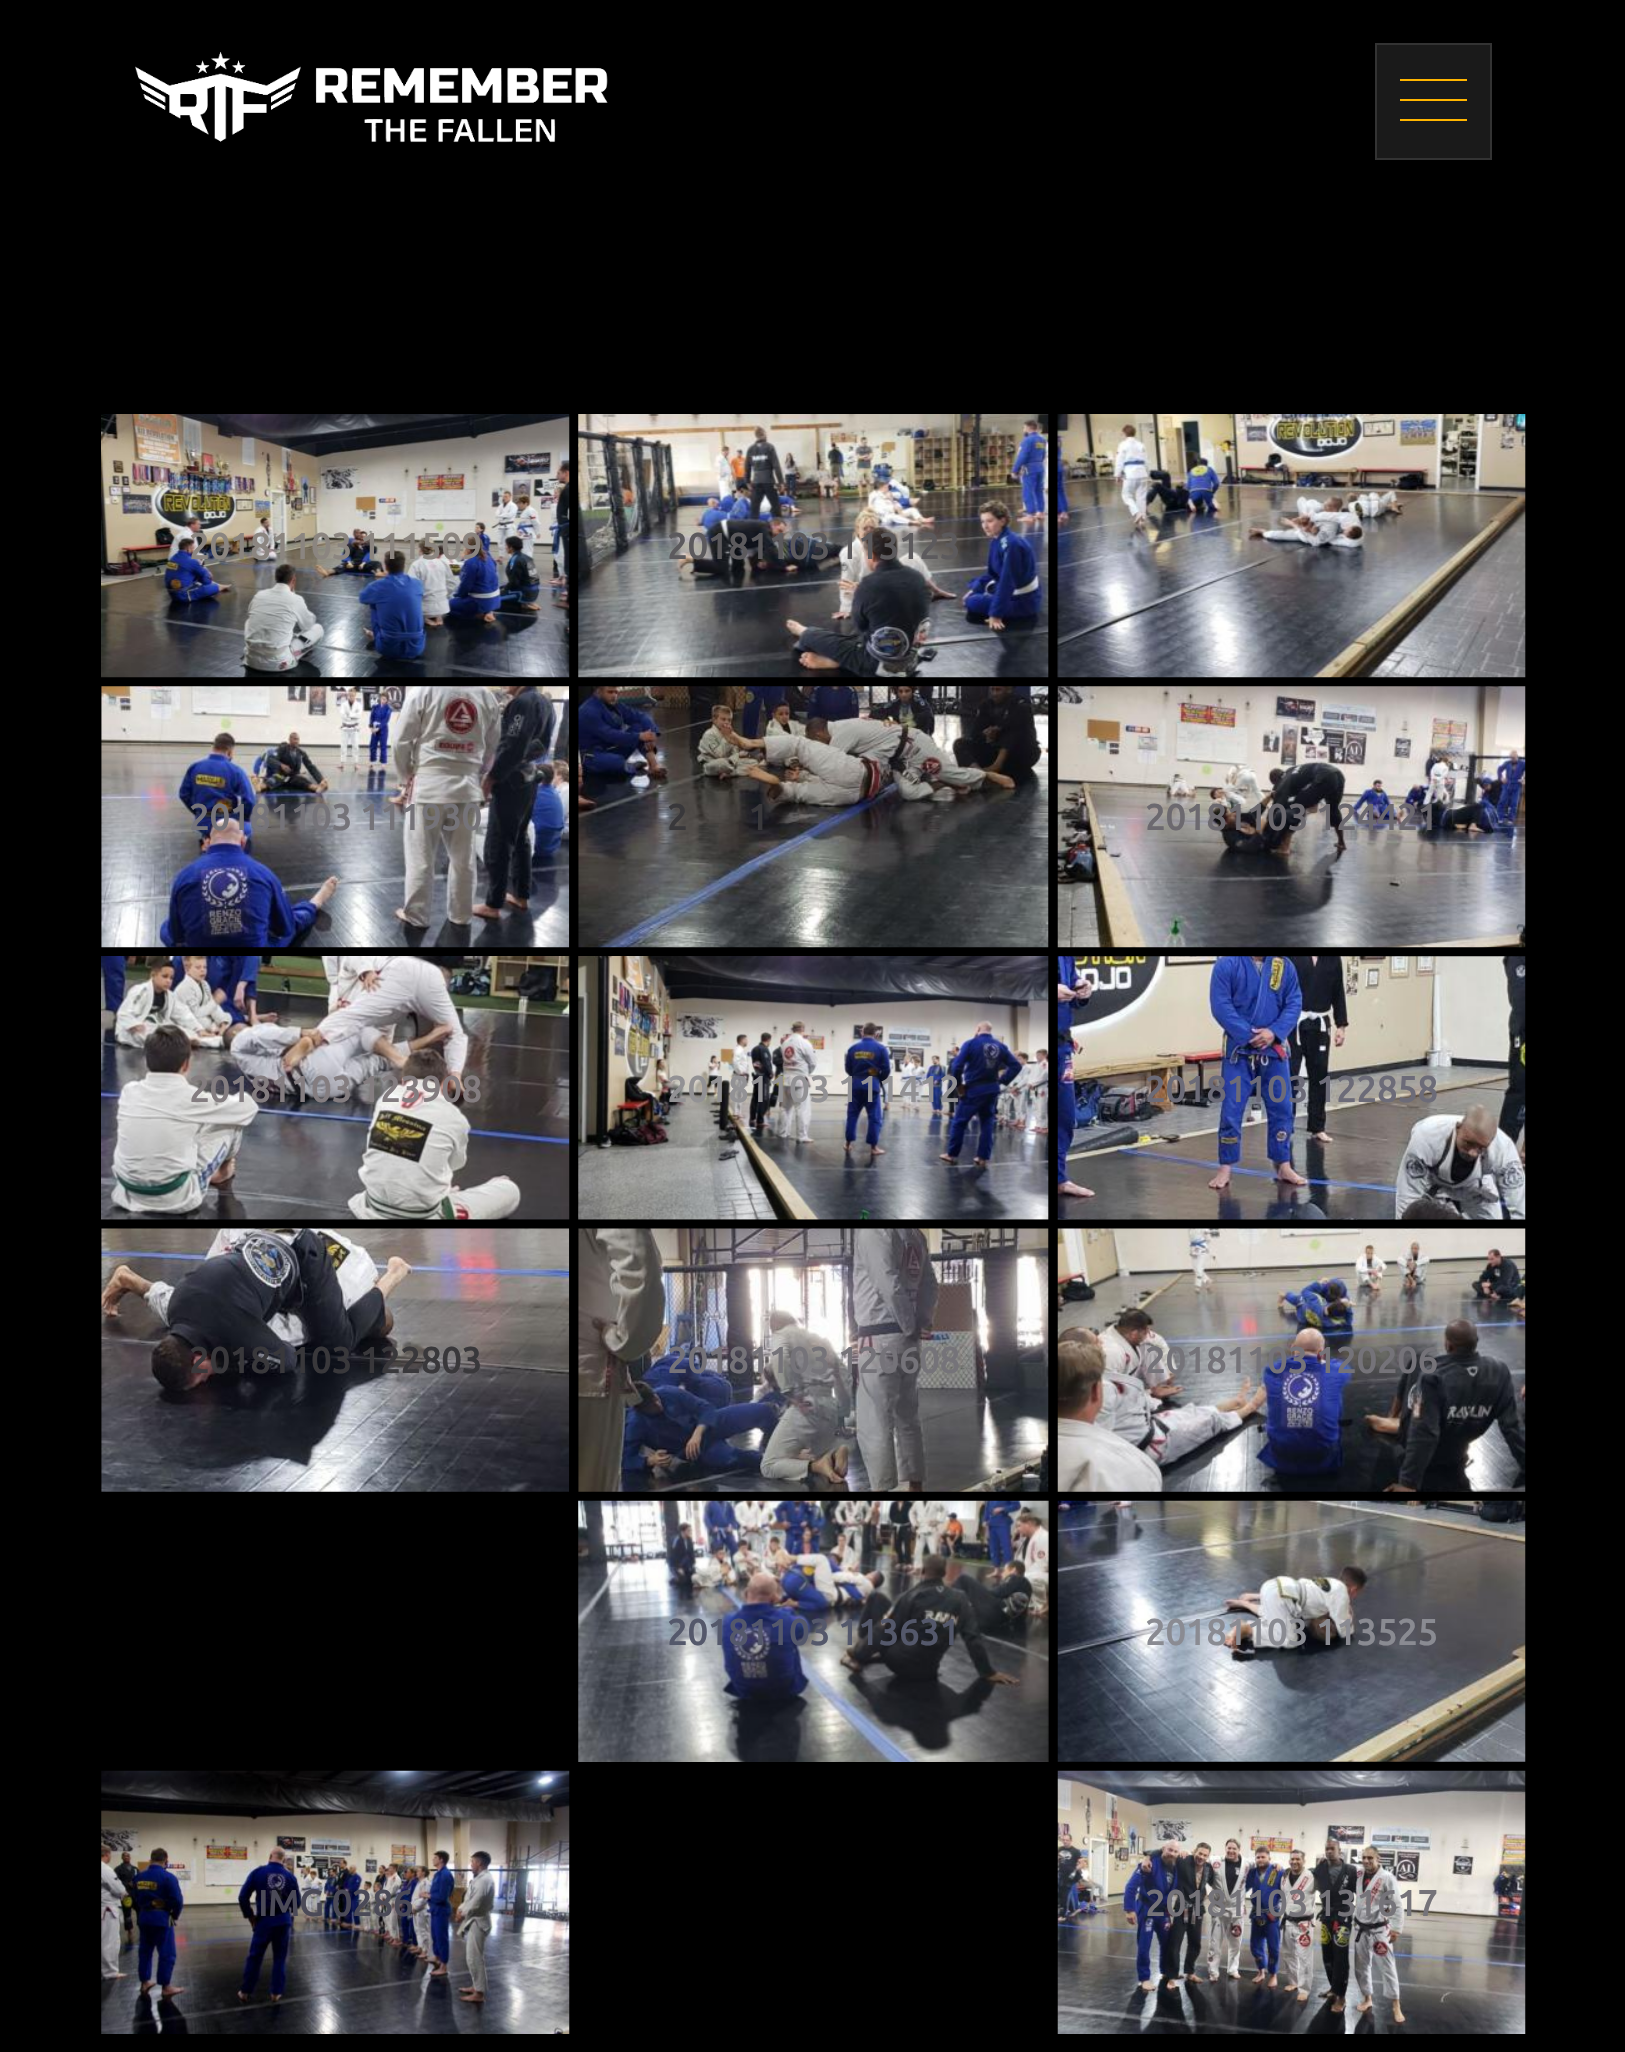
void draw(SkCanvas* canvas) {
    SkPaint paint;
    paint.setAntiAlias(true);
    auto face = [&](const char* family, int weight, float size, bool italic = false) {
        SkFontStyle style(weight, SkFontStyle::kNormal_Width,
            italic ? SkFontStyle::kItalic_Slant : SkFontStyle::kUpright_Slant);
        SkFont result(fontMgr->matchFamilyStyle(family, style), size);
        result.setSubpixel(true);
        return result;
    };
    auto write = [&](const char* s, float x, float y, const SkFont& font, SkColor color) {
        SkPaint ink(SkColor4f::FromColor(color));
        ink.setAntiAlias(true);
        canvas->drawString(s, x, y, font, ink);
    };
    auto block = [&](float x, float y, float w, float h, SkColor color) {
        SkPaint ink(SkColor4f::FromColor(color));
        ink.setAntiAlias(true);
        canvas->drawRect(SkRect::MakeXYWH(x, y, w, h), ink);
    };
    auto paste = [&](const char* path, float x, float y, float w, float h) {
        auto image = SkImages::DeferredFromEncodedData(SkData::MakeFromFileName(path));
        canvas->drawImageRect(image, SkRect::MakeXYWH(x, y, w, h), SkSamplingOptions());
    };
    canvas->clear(SK_ColorBLACK);
    paste("pic1.png", 135, 51, 473, 92);
    paint.setColor(SkColorSetRGB(26, 26, 26));
    canvas->drawRect(SkRect::MakeXYWH(1376, 44, 115, 115), paint);
    paint.setStyle(SkPaint::kStroke_Style);
    paint.setStrokeWidth(2);
    paint.setColor(SkColorSetRGB(51, 51, 51));
    canvas->drawRect(SkRect::MakeXYWH(1376, 44, 115, 115), paint);
    block(1400, 79, 67, 2, SkColorSetRGB(255, 181, 0));
    block(1400, 99, 67, 2, SkColorSetRGB(255, 181, 0));
    block(1400, 119, 67, 2, SkColorSetRGB(255, 181, 0));
    paste("pic2.png", 101, 414, 469, 264);
    auto kFont1 = face("Ubuntu", 700, 36);
    write("20181103 111509", 189, 559, kFont1, SkColorSetRGB(139, 133, 128));
    paste("pic3.png", 578, 414, 471, 264);
    write("20181103 113123", 667, 559, kFont1, SkColorSetRGB(92, 90, 93));
    paste("pic4.png", 1057, 414, 469, 264);
    paste("pic5.png", 101, 686, 469, 262);
    write("20181103 111930", 189, 830, kFont1, SkColorSetRGB(117, 115, 121));
    paste("pic6.png", 578, 686, 471, 262);
    write("2", 667, 830, kFont1, SkColorSetRGB(57, 56, 59));
    write("1", 748, 830, kFont1, SkColorSetRGB(57, 56, 59));
    paste("pic7.png", 1057, 686, 469, 262);
    write("20181103 124421", 1145, 830, kFont1, SkColorSetRGB(108, 105, 111));
    paste("pic8.png", 101, 956, 469, 264);
    write("20181103 123908", 189, 1102, kFont1, SkColorSetRGB(132, 125, 128));
    paste("pic9.png", 578, 956, 471, 264);
    write("20181103 111412", 667, 1102, kFont1, SkColorSetRGB(146, 145, 148));
    paste("pic10.png", 1057, 956, 469, 264);
    write("20181103 122858", 1145, 1102, kFont1, SkColorSetRGB(108, 107, 120));
    paste("pic11.png", 101, 1228, 469, 264);
    write("20181103 122803", 189, 1373, kFont1, SkColorSetRGB(57, 56, 59));
    paste("pic12.png", 578, 1228, 471, 264);
    write("20181103 120608", 667, 1373, kFont1, SkColorSetRGB(117, 115, 121));
    paste("pic13.png", 1057, 1228, 469, 264);
    write("20181103 120206", 1145, 1373, kFont1, SkColorSetRGB(117, 115, 121));
    paste("pic14.png", 578, 1500, 471, 262);
    write("20181103 113631", 667, 1645, kFont1, SkColorSetRGB(84, 88, 107));
    paste("pic15.png", 1057, 1500, 469, 262);
    write("20181103 113525", 1145, 1645, kFont1, SkColorSetRGB(138, 139, 146));
    paste("pic16.png", 101, 1770, 469, 264);
    write("IMG 0286", 258, 1916, kFont1, SkColorSetRGB(75, 74, 87));
    paste("pic17.png", 1057, 1770, 469, 264);
    write("20181103 131617", 1145, 1916, kFont1, SkColorSetRGB(117, 115, 121));
}
